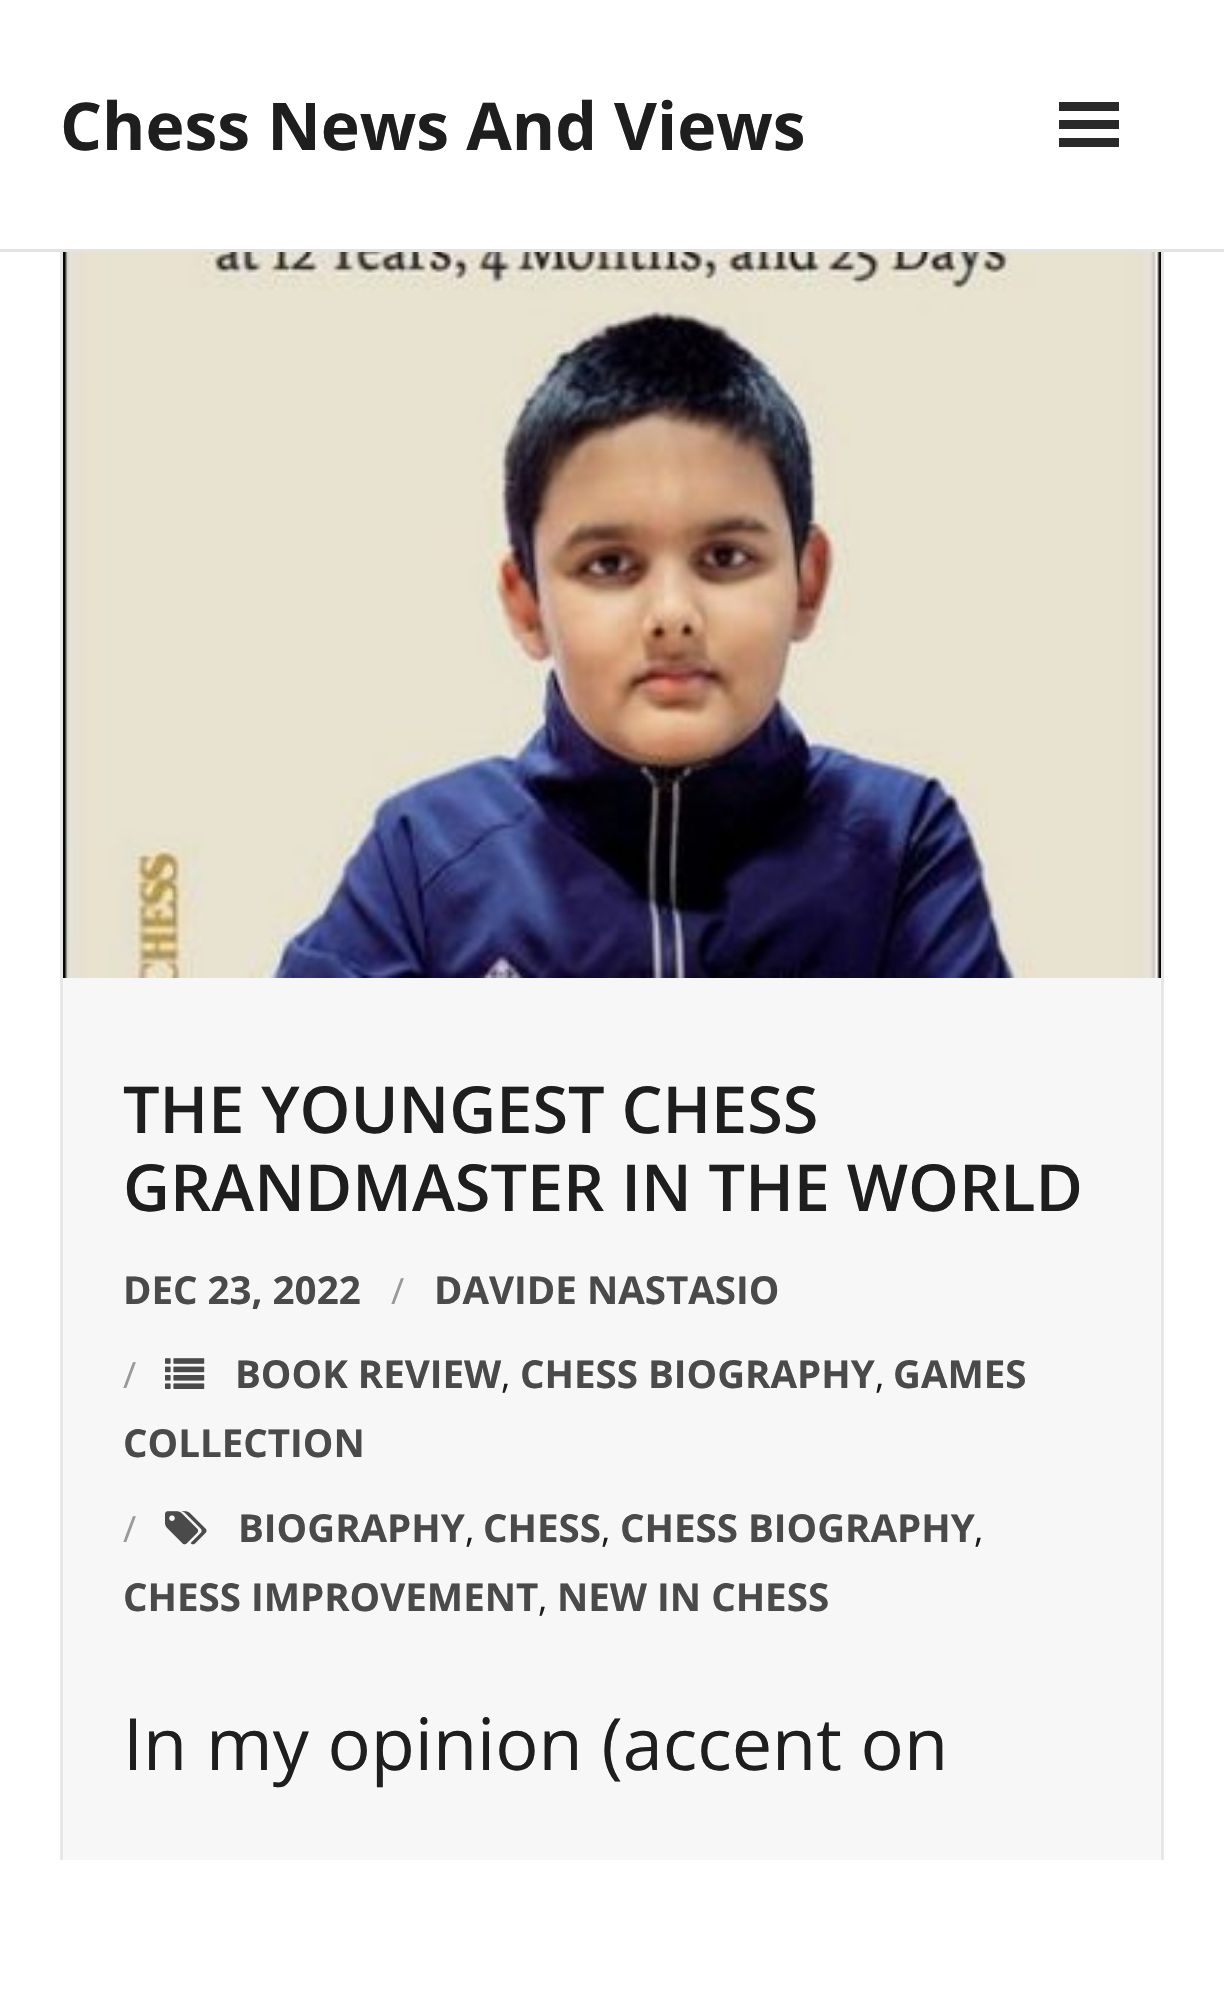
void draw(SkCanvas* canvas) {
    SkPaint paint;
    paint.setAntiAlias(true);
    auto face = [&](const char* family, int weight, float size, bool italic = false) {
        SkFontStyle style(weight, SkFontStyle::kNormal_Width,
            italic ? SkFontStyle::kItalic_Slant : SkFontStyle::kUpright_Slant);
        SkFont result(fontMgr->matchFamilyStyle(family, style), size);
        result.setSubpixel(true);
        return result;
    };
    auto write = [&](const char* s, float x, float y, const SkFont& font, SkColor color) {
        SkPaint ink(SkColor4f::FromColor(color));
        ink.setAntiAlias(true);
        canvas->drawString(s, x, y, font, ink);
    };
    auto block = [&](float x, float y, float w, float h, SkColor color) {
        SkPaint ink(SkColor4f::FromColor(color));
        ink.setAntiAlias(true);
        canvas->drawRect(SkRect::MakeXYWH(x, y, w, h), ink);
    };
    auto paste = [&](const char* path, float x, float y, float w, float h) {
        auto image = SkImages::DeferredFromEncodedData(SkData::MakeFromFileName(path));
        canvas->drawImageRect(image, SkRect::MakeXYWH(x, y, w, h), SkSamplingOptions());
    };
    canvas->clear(SK_ColorWHITE);
    block(63, 978, 1098, 882, SkColorSetRGB(247, 247, 247));
    canvas->save();
    canvas->clipRect(SkRect::MakeXYWH(30, 240, 1164, 1620));
    paint.setStyle(SkPaint::kStroke_Style);
    paint.setStrokeWidth(3);
    paint.setColor(SkColorSetRGB(231, 231, 231));
    canvas->drawRect(SkRect::MakeXYWH(61.5f, 241.5f, 1101, 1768), paint);
    canvas->restore();
    block(60, 240, 1104, 9, SK_ColorWHITE);
    block(0, 249, 1224, 3, SkColorSetRGB(227, 227, 227));
    auto kFont1 = face("Open Sans", 700, 66);
    write("Chess News And Views", 60, 150, kFont1, SkColorSetRGB(30, 30, 30));
    block(1059, 102, 60, 9, SkColorSetRGB(41, 41, 41));
    block(1059, 120, 60, 9, SkColorSetRGB(41, 41, 41));
    block(1059, 138, 60, 9, SkColorSetRGB(41, 41, 41));
    paste("pic1.png", 63, 252, 1098, 726);
    auto kFont2 = face("Open Sans", 600, 64.75f);
    write("THE YOUNGEST CHESS", 123, 1133, kFont2, SkColorSetRGB(30, 30, 30));
    write("GRANDMASTER IN THE WORLD", 123, 1211, kFont2, SkColorSetRGB(30, 30, 30));
    auto kFont3 = face("Open Sans", 700, 38.5f);
    write("DEC 23, 2022", 123, 1304, kFont3, SkColorSetRGB(74, 74, 74));
    auto kFont4 = face("Open Sans", 400, 36);
    write("/", 391, 1304, kFont4, SkColorSetRGB(153, 153, 153));
    write("DAVIDE NASTASIO", 434, 1304, kFont3, SkColorSetRGB(74, 74, 74));
    write("/", 123, 1388, kFont4, SkColorSetRGB(153, 153, 153));
    paste("pic2.png", 165, 1358, 40, 31);
    write("BOOK REVIEW", 235, 1388, kFont3, SkColorSetRGB(74, 74, 74));
    write(",", 501, 1388, kFont4, SkColorSetRGB(30, 30, 30));
    write("CHESS BIOGRAPHY", 520, 1388, kFont3, SkColorSetRGB(74, 74, 74));
    write(",", 875, 1388, kFont4, SkColorSetRGB(30, 30, 30));
    write("GAMES", 893, 1388, kFont3, SkColorSetRGB(74, 74, 74));
    write("COLLECTION", 123, 1457, kFont3, SkColorSetRGB(74, 74, 74));
    write("/", 123, 1542, kFont4, SkColorSetRGB(153, 153, 153));
    paste("pic3.png", 165, 1511, 42, 34);
    write("BIOGRAPHY", 238, 1542, kFont3, SkColorSetRGB(74, 74, 74));
    write(",", 465, 1542, kFont4, SkColorSetRGB(30, 30, 30));
    write("CHESS", 483, 1542, kFont3, SkColorSetRGB(74, 74, 74));
    write(",", 601, 1542, kFont4, SkColorSetRGB(30, 30, 30));
    write("CHESS BIOGRAPHY", 620, 1542, kFont3, SkColorSetRGB(74, 74, 74));
    write(",", 974, 1542, kFont4, SkColorSetRGB(30, 30, 30));
    write("CHESS IMPROVEMENT", 123, 1611, kFont3, SkColorSetRGB(74, 74, 74));
    write(",", 538, 1611, kFont4, SkColorSetRGB(30, 30, 30));
    write("NEW IN CHESS", 557, 1611, kFont3, SkColorSetRGB(74, 74, 74));
    auto kFont5 = face("Open Sans", 400, 72);
    write("In my opinion (accent on", 123, 1770, kFont5, SkColorSetRGB(30, 30, 30));
}
